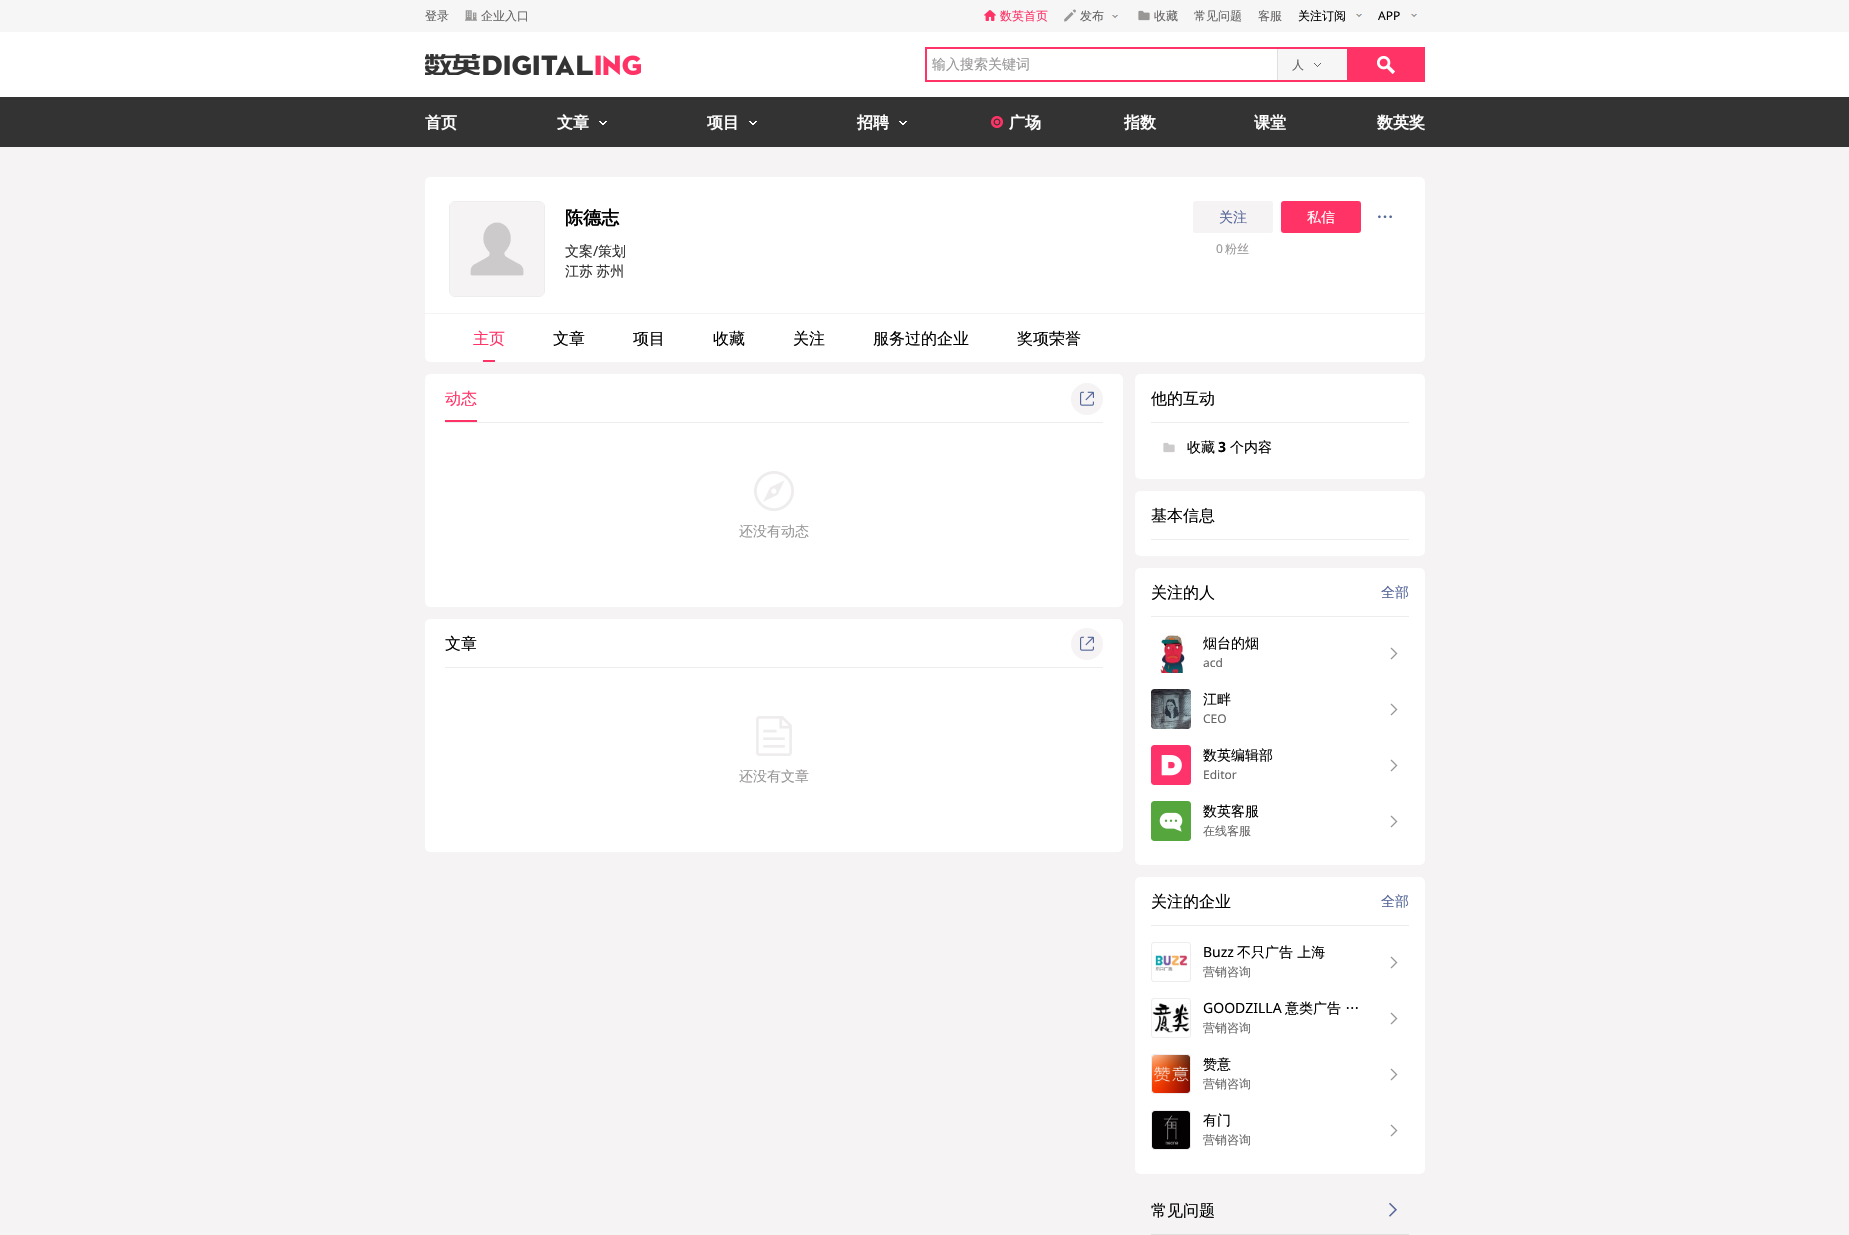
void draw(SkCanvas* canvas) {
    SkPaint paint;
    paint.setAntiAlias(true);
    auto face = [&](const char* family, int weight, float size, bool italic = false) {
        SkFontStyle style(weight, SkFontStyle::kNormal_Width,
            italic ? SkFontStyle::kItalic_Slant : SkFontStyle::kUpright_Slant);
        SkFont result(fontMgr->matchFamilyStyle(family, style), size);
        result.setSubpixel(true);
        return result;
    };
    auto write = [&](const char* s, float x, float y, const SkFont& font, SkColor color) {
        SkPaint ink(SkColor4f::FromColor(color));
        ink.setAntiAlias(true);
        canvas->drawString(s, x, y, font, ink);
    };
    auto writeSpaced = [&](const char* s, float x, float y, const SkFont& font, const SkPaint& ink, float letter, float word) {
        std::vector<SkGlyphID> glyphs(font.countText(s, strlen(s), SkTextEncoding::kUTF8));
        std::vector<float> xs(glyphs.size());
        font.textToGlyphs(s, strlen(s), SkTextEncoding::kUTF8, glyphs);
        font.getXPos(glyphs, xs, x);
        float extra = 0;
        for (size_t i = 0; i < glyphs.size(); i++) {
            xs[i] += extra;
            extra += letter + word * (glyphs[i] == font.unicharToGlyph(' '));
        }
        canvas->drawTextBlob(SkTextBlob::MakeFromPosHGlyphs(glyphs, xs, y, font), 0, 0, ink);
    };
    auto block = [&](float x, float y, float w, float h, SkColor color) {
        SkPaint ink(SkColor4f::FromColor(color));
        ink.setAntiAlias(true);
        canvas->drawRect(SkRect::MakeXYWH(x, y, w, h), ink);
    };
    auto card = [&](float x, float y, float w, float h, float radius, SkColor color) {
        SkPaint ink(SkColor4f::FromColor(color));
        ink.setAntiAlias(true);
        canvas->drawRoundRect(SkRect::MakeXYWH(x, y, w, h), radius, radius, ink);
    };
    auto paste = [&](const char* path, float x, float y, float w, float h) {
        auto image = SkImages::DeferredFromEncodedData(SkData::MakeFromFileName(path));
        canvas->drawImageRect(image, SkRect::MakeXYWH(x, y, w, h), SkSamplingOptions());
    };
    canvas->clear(SkColorSetRGB(245, 243, 243));
    block(0, 32, 1849, 65, SK_ColorWHITE);
    block(0, 0, 1849, 32, SkColorSetRGB(246, 246, 246));
    auto kFont1 = face("WenQuanYi Zen Hei", 500, 12);
    write("登录", 425, 20, kFont1, SkColorSetRGB(102, 99, 99));
    paste("pic1.png", 465, 10, 12, 11);
    write("企业入口", 481, 20, kFont1, SkColorSetRGB(102, 99, 99));
    paste("pic2.png", 984, 10, 12, 11);
    write("数英首页", 1000, 20, kFont1, SkColorSetRGB(255, 51, 102));
    paste("pic3.png", 1064, 9, 12, 13);
    write("发布", 1080, 20, kFont1, SkColorSetRGB(102, 99, 99));
    paste("pic4.png", 1112, 15, 6, 3);
    paste("pic5.png", 1138, 10, 12, 11);
    write("收藏", 1154, 20, kFont1, SkColorSetRGB(102, 99, 99));
    write("常见问题", 1194, 20, kFont1, SkColorSetRGB(102, 99, 99));
    write("客服", 1258, 20, kFont1, SkColorSetRGB(102, 99, 99));
    write("关注订阅", 1298, 20, kFont1, SK_ColorBLACK);
    paste("pic4.png", 1356, 14, 6, 3);
    auto kFont2 = face("Noto Sans", 400, 12);
    write("APP", 1378, 20, kFont2, SK_ColorBLACK);
    paste("pic4.png", 1411, 14, 6, 3);
    paste("pic6.png", 425, 54, 216, 21);
    block(925, 47, 422, 2, SkColorSetRGB(255, 51, 102));
    block(925, 80, 422, 2, SkColorSetRGB(255, 51, 102));
    block(925, 47, 2, 35, SkColorSetRGB(255, 51, 102));
    canvas->save();
    canvas->clipRect(SkRect::MakeXYWH(932, 56, 340, 18));
    auto kFont3 = face("WenQuanYi Zen Hei", 500, 14);
    write("输入搜索关键词", 932, 69, kFont3, SkColorSetRGB(153, 150, 150));
    canvas->restore();
    paint.setColor(SkColorSetRGB(246, 246, 246));
    canvas->drawPath(SkPathBuilder().moveTo(1277, 49).lineTo(1344, 49).cubicTo(1345.5f, 49, 1347, 50.5f, 1347, 52).lineTo(1347, 77).cubicTo(1347, 78.5f, 1345.5f, 80, 1344, 80).lineTo(1277, 80).close().detach(), paint);
    block(1277, 49, 1, 31, SkColorSetRGB(224, 224, 224));
    write("人", 1292, 69, kFont1, SkColorSetRGB(102, 99, 99));
    paste("pic7.png", 1314, 63, 7, 4);
    block(1347, 47, 78, 35, SkColorSetRGB(255, 51, 102));
    paste("pic8.png", 1377, 56, 18, 18);
    block(0, 97, 1849, 50, SkColorSetRGB(51, 51, 51));
    auto kFont4 = face("WenQuanYi Zen Hei", 700, 16);
    write("首页", 425, 128, kFont4, SK_ColorWHITE);
    write("文章", 557, 128, kFont4, SK_ColorWHITE);
    paste("pic9.png", 599, 121, 8, 4);
    write("项目", 707, 128, kFont4, SK_ColorWHITE);
    paste("pic9.png", 749, 121, 8, 4);
    write("招聘", 857, 128, kFont4, SK_ColorWHITE);
    paste("pic9.png", 899, 121, 8, 4);
    paste("pic10.png", 991, 116, 12, 12);
    write("广场", 1009, 128, kFont4, SK_ColorWHITE);
    write("指数", 1124, 128, kFont4, SK_ColorWHITE);
    write("课堂", 1254, 128, kFont4, SK_ColorWHITE);
    write("数英奖", 1377, 128, kFont4, SK_ColorWHITE);
    card(425, 177, 1000, 185, 5, SK_ColorWHITE);
    paint.setStyle(SkPaint::kStroke_Style);
    paint.setStrokeWidth(1);
    paint.setColor(SkColorSetRGB(238, 236, 236));
    canvas->drawRoundRect(SkRect::MakeXYWH(449.5f, 201.5f, 95, 95), 5.5f, 5.5f, paint);
    paste("pic11.png", 450, 202, 94, 94);
    auto kFont5 = face("WenQuanYi Zen Hei", 700, 18);
    write("陈德志", 565, 224, kFont5, SK_ColorBLACK);
    write("文案", 565, 256, kFont3, SkColorSetRGB(51, 49, 49));
    auto kFont6 = face("Noto Sans", 400, 14);
    write("/", 593, 256, kFont6, SkColorSetRGB(51, 49, 49));
    write("策划", 598, 256, kFont3, SkColorSetRGB(51, 49, 49));
    paint.setStyle(SkPaint::kFill_Style);
    paint.setColor(SkColorSetRGB(51, 49, 49));
    writeSpaced("江苏 苏州", 565, 276, kFont3, paint, 0, -1);
    card(1193, 201, 80, 32, 3, SkColorSetRGB(245, 243, 243));
    write("关注", 1219, 222, kFont3, SkColorSetRGB(85, 102, 153));
    card(1281, 201, 80, 32, 3, SkColorSetRGB(255, 51, 102));
    write("私信", 1307, 222, kFont3, SK_ColorWHITE);
    paste("pic12.png", 1378, 215, 14, 4);
    write("0", 1216, 253, kFont2, SkColorSetRGB(153, 150, 150));
    write("粉丝", 1225, 253, kFont1, SkColorSetRGB(153, 150, 150));
    block(425, 313, 1000, 1, SkColorSetRGB(245, 243, 243));
    auto kFont7 = face("WenQuanYi Zen Hei", 500, 16);
    write("主页", 473, 344, kFont7, SkColorSetRGB(255, 51, 102));
    block(483, 360, 12, 2, SkColorSetRGB(255, 51, 102));
    write("文章", 553, 344, kFont7, SK_ColorBLACK);
    write("项目", 633, 344, kFont7, SK_ColorBLACK);
    write("收藏", 713, 344, kFont7, SK_ColorBLACK);
    write("关注", 793, 344, kFont7, SK_ColorBLACK);
    write("服务过的企业", 873, 344, kFont7, SK_ColorBLACK);
    write("奖项荣誉", 1017, 344, kFont7, SK_ColorBLACK);
    card(425, 374, 698, 233, 5, SK_ColorWHITE);
    block(445, 422, 658, 1, SkColorSetRGB(238, 236, 236));
    write("动态", 445, 404, kFont7, SkColorSetRGB(255, 51, 102));
    block(445, 420, 32, 2, SkColorSetRGB(255, 51, 102));
    paint.setColor(SkColorSetRGB(245, 243, 243));
    canvas->drawCircle(1087, 399, 16, paint);
    paste("pic13.png", 1080, 391, 14, 15);
    paste("pic14.png", 754, 471, 40, 40);
    write("还没有动态", 739, 536, kFont3, SkColorSetRGB(153, 150, 150));
    card(425, 619, 698, 233, 5, SK_ColorWHITE);
    block(445, 667, 658, 1, SkColorSetRGB(238, 236, 236));
    write("文章", 445, 649, kFont7, SK_ColorBLACK);
    canvas->drawCircle(1087, 644, 16, paint);
    paste("pic13.png", 1080, 636, 14, 15);
    paste("pic15.png", 756, 716, 36, 40);
    write("还没有文章", 739, 781, kFont3, SkColorSetRGB(153, 150, 150));
    card(1135, 374, 290, 105, 5, SK_ColorWHITE);
    block(1151, 422, 258, 1, SkColorSetRGB(238, 236, 236));
    write("他的互动", 1151, 404, kFont7, SK_ColorBLACK);
    paste("pic16.png", 1163, 442, 12, 11);
    write("收藏", 1187, 452, kFont3, SK_ColorBLACK);
    auto kFont8 = face("Noto Sans", 700, 14);
    write("3", 1218, 452, kFont8, SK_ColorBLACK);
    write("个内容", 1230, 452, kFont3, SK_ColorBLACK);
    card(1135, 491, 290, 65, 5, SK_ColorWHITE);
    block(1151, 539, 258, 1, SkColorSetRGB(238, 236, 236));
    write("基本信息", 1151, 521, kFont7, SK_ColorBLACK);
    card(1135, 568, 290, 297, 5, SK_ColorWHITE);
    block(1151, 616, 258, 1, SkColorSetRGB(238, 236, 236));
    write("关注的人", 1151, 598, kFont7, SK_ColorBLACK);
    write("全部", 1381, 597, kFont3, SkColorSetRGB(85, 102, 153));
    paste("pic17.png", 1160, 635, 25, 38);
    write("烟台的烟", 1203, 648, kFont3, SK_ColorBLACK);
    write("acd", 1203, 667, kFont2, SkColorSetRGB(102, 99, 99));
    paste("pic18.png", 1390, 647, 8, 13);
    paste("pic19.png", 1151, 689, 40, 40);
    write("江畔", 1203, 704, kFont3, SK_ColorBLACK);
    write("CEO", 1203, 723, kFont2, SkColorSetRGB(102, 99, 99));
    paste("pic18.png", 1390, 703, 8, 13);
    paste("pic20.png", 1151, 745, 40, 40);
    write("数英编辑部", 1203, 760, kFont3, SK_ColorBLACK);
    write("Editor", 1203, 779, kFont2, SkColorSetRGB(102, 99, 99));
    paste("pic18.png", 1390, 759, 8, 13);
    paste("pic21.png", 1151, 801, 40, 40);
    write("数英客服", 1203, 816, kFont3, SK_ColorBLACK);
    write("在线客服", 1203, 835, kFont1, SkColorSetRGB(102, 99, 99));
    paste("pic18.png", 1390, 815, 8, 13);
    card(1135, 877, 290, 297, 5, SK_ColorWHITE);
    block(1151, 925, 258, 1, SkColorSetRGB(238, 236, 236));
    write("关注的企业", 1151, 907, kFont7, SK_ColorBLACK);
    write("全部", 1381, 906, kFont3, SkColorSetRGB(85, 102, 153));
    paint.setStyle(SkPaint::kStroke_Style);
    paint.setColor(SkColorSetRGB(238, 236, 236));
    canvas->drawRoundRect(SkRect::MakeXYWH(1151.5f, 942.5f, 39, 39), 2.5f, 2.5f, paint);
    paste("pic22.png", 1155, 955, 33, 16);
    write("Buzz", 1203, 957, kFont6, SK_ColorBLACK);
    write("不只广告 上海", 1237, 957, kFont3, SK_ColorBLACK);
    write("营销咨询", 1203, 976, kFont1, SkColorSetRGB(102, 99, 99));
    paste("pic18.png", 1390, 956, 8, 13);
    canvas->drawRoundRect(SkRect::MakeXYWH(1151.5f, 998.5f, 39, 39), 2.5f, 2.5f, paint);
    paste("pic23.png", 1152, 1003, 38, 30);
    write("GOODZILLA", 1203, 1013, kFont6, SK_ColorBLACK);
    write("意类广告 …", 1285, 1013, kFont3, SK_ColorBLACK);
    write("营销咨询", 1203, 1032, kFont1, SkColorSetRGB(102, 99, 99));
    paste("pic18.png", 1390, 1012, 8, 13);
    canvas->drawRoundRect(SkRect::MakeXYWH(1151.5f, 1054.5f, 39, 39), 2.5f, 2.5f, paint);
    paste("pic24.png", 1152, 1055, 38, 38);
    write("赞意", 1203, 1069, kFont3, SK_ColorBLACK);
    write("营销咨询", 1203, 1088, kFont1, SkColorSetRGB(102, 99, 99));
    paste("pic18.png", 1390, 1068, 8, 13);
    canvas->drawRoundRect(SkRect::MakeXYWH(1151.5f, 1110.5f, 39, 39), 2.5f, 2.5f, paint);
    paste("pic25.png", 1152, 1111, 38, 38);
    write("有门", 1203, 1125, kFont3, SK_ColorBLACK);
    write("营销咨询", 1203, 1144, kFont1, SkColorSetRGB(102, 99, 99));
    paste("pic18.png", 1390, 1124, 8, 13);
    block(1151, 1234, 258, 1, SkColorSetRGB(224, 222, 222));
    write("常见问题", 1151, 1216, kFont7, SK_ColorBLACK);
    paste("pic26.png", 1389, 1202, 8, 15);
}
